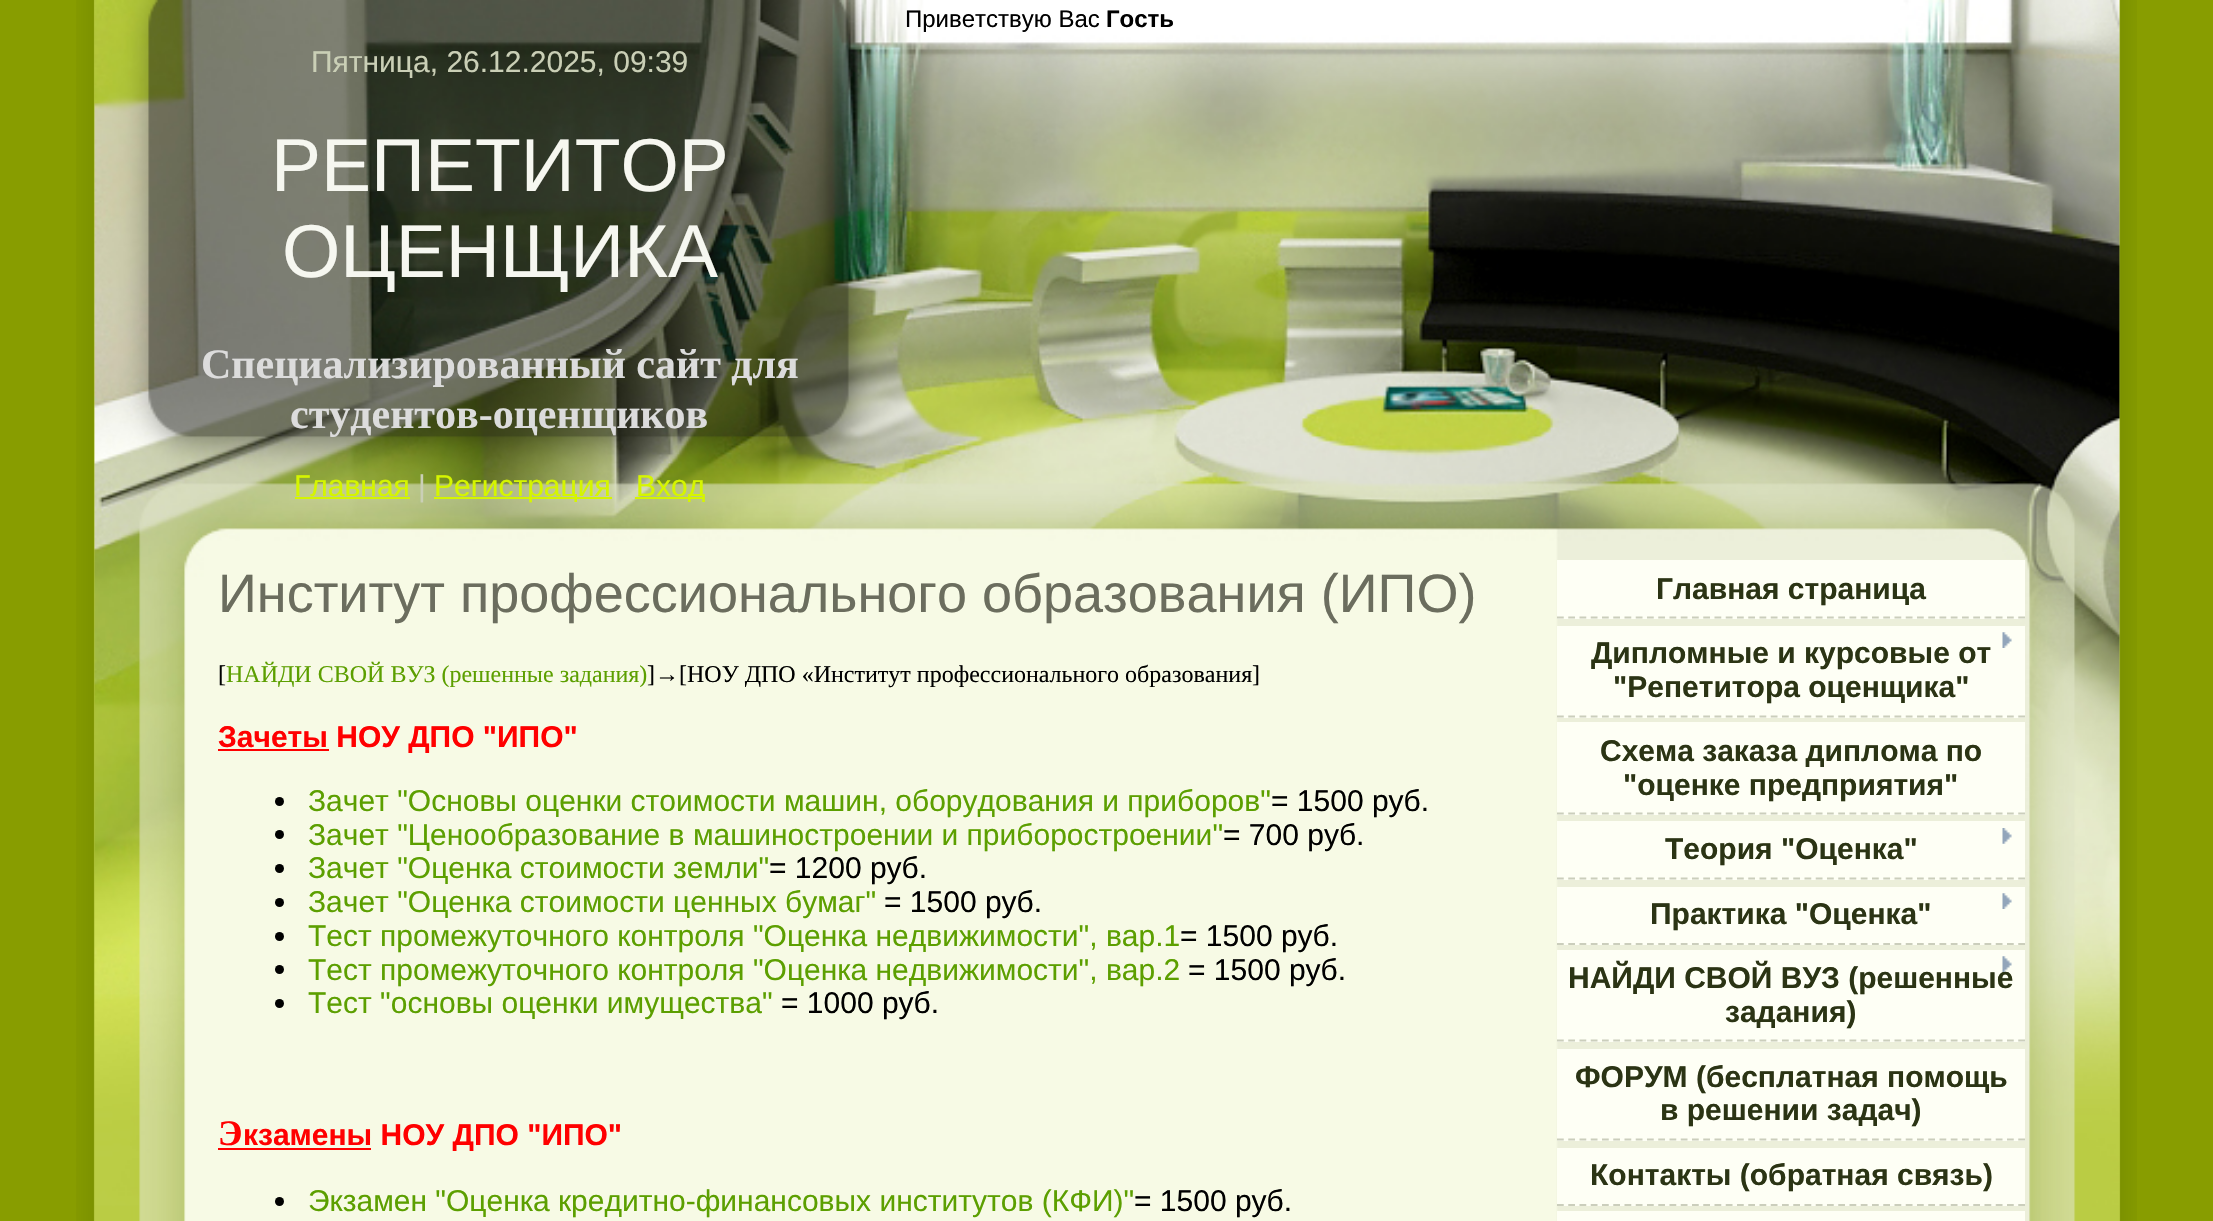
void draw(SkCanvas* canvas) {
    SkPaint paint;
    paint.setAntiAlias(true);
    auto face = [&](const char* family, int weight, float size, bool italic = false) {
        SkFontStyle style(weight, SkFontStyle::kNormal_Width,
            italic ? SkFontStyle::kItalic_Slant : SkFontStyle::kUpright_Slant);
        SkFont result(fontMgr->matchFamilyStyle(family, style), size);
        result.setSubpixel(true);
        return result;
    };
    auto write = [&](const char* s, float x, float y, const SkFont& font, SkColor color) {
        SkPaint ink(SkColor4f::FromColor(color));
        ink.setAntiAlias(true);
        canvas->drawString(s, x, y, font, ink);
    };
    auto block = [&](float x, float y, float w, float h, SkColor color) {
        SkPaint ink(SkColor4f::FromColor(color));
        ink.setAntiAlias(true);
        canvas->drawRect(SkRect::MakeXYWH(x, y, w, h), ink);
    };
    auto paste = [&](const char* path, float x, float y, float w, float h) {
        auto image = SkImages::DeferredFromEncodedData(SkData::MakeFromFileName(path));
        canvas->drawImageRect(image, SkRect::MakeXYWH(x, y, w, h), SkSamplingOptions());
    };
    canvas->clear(SkColorSetRGB(136, 157, 0));
    paste("pic1.png", 76, 0, 2061, 1221);
    paste("pic2.png", 94, 0, 2026, 1221);
    paste("pic3.png", 94, 0, 2026, 1221);
    auto kFont1 = face("Liberation Sans", 400, 24);
    write("Приветствую Вас", 905, 27, kFont1, SK_ColorBLACK);
    auto kFont2 = face("Liberation Sans", 700, 24);
    write("Гость", 1106, 27, kFont2, SK_ColorBLACK);
    auto kFont3 = face("Liberation Sans", 400, 30);
    write("Пятница, 26.12.2025, 09:39", 311, 72, kFont3, SkColorSetRGB(202, 207, 182));
    auto kFont4 = face("Liberation Sans", 400, 75);
    write("РЕПЕТИТОР", 271, 191, kFont4, SkColorSetRGB(246, 247, 240));
    write("ОЦЕНЩИКА", 282, 277, kFont4, SkColorSetRGB(246, 247, 240));
    auto kFont5 = face("Liberation Serif", 700, 42);
    write("Специализированный сайт для", 201, 378, kFont5, SkColorSetRGB(220, 220, 220));
    write("студентов-оценщиков", 290, 428, kFont5, SkColorSetRGB(220, 220, 220));
    write("Главная", 294, 496, kFont3, SkColorSetRGB(213, 245, 0));
    block(295, 497, 115, 2, SkColorSetRGB(213, 245, 0));
    write("|", 418, 496, kFont3, SkColorSetRGB(202, 207, 182));
    block(434, 497, 178, 2, SkColorSetRGB(213, 245, 0));
    write("Регистрация", 434, 496, kFont3, SkColorSetRGB(213, 245, 0));
    block(635, 497, 69, 2, SkColorSetRGB(213, 245, 0));
    write("Вход", 636, 496, kFont3, SkColorSetRGB(213, 245, 0));
    auto kFont6 = face("Liberation Sans", 400, 54);
    write("Институт профессионального образования (ИПО)", 218, 612, kFont6, SkColorSetRGB(107, 109, 94));
    auto kFont7 = face("Liberation Serif", 400, 24);
    write("[", 218, 682, kFont7, SK_ColorBLACK);
    write("НАЙДИ СВОЙ ВУЗ (решенные задания)", 226, 682, kFont7, SkColorSetRGB(92, 159, 0));
    write("]→[НОУ ДПО «Институт профессионального образования", 647, 682, kFont7, SK_ColorBLACK);
    write("]", 1252, 682, kFont7, SK_ColorBLACK);
    block(218, 749, 111, 2, SkColorSetRGB(255, 0, 0));
    auto kFont8 = face("Liberation Sans", 700, 30);
    write("Зачеты НОУ ДПО \"ИПО\"", 218, 747, kFont8, SkColorSetRGB(255, 0, 0));
    paint.setColor(SK_ColorBLACK);
    canvas->drawCircle(279.5f, 801.5f, 4.5f, paint);
    write("Зачет \"Основы оценки стоимости машин, оборудования и приборов\"", 308, 811, kFont3, SkColorSetRGB(92, 159, 0));
    write("= 1500 руб.", 1271, 811, kFont3, SK_ColorBLACK);
    canvas->drawCircle(279.5f, 834.5f, 4.5f, paint);
    write("Зачет \"Ценообразование в машиностроении и приборостроении\"", 308, 845, kFont3, SkColorSetRGB(92, 159, 0));
    write("= 700 руб.", 1223, 845, kFont3, SK_ColorBLACK);
    canvas->drawCircle(279.5f, 868.5f, 4.5f, paint);
    write("Зачет \"Оценка стоимости земли\"", 308, 878, kFont3, SkColorSetRGB(92, 159, 0));
    write("= 1200 руб.", 769, 878, kFont3, SK_ColorBLACK);
    canvas->drawCircle(279.5f, 902.5f, 4.5f, paint);
    write("Зачет \"Оценка стоимости ценных бумаг\"", 308, 912, kFont3, SkColorSetRGB(92, 159, 0));
    write("= 1500 руб.", 884, 912, kFont3, SK_ColorBLACK);
    canvas->drawCircle(279.5f, 936.5f, 4.5f, paint);
    write("Тест промежуточного контроля \"Оценка недвижимости\", вар.1", 308, 946, kFont3, SkColorSetRGB(92, 159, 0));
    write("= 1500 руб.", 1180, 946, kFont3, SK_ColorBLACK);
    canvas->drawCircle(279.5f, 969.5f, 4.5f, paint);
    write("Тест промежуточного контроля \"Оценка недвижимости\", вар.2", 308, 980, kFont3, SkColorSetRGB(92, 159, 0));
    write("= 1500 руб.", 1188, 980, kFont3, SK_ColorBLACK);
    canvas->drawCircle(279.5f, 1003.5f, 4.5f, paint);
    write("Тест \"основы оценки имущества\"", 308, 1013, kFont3, SkColorSetRGB(92, 159, 0));
    write("= 1000 руб.", 781, 1013, kFont3, SK_ColorBLACK);
    auto kFont9 = face("Liberation Serif", 700, 36);
    write("Э", 218, 1145, kFont9, SkColorSetRGB(255, 0, 0));
    block(218, 1148, 153, 2, SkColorSetRGB(255, 0, 0));
    write("кзамены НОУ ДПО \"ИПО\"", 243, 1145, kFont8, SkColorSetRGB(255, 0, 0));
    canvas->drawCircle(279.5f, 1201.5f, 4.5f, paint);
    write("Экзамен \"Оценка кредитно-финансовых институтов (КФИ)\"", 308, 1211, kFont3, SkColorSetRGB(92, 159, 0));
    write("= 1500 руб.", 1134, 1211, kFont3, SK_ColorBLACK);
    block(1557, 560, 468, 59, SkColorSetRGB(254, 255, 245));
    paint.setStyle(SkPaint::kStroke_Style);
    paint.setStrokeWidth(2.2f);
    paint.setColor(SkColorSetRGB(203, 206, 188));
    paint.setPathEffect(SkDashPathEffect::Make({{6.75f, 4.5f}}, 0));
    canvas->drawPath(SkPathBuilder().moveTo(1557, 617.5f).lineTo(2025, 617.5f).detach(), paint);
    paint.setPathEffect(nullptr);
    write("Главная страница", 1656, 599, kFont8, SkColorSetRGB(43, 52, 20));
    block(1557, 626, 468, 92, SkColorSetRGB(254, 255, 245));
    paint.setPathEffect(SkDashPathEffect::Make({{6.75f, 4.5f}}, 0));
    canvas->drawPath(SkPathBuilder().moveTo(1557, 716.5f).lineTo(2025, 716.5f).detach(), paint);
    paint.setPathEffect(nullptr);
    paste("pic4.png", 2002, 632, 10, 16);
    write("Дипломные и курсовые от", 1591, 663, kFont8, SkColorSetRGB(43, 52, 20));
    write("\"Репетитора оценщика\"", 1613, 697, kFont8, SkColorSetRGB(43, 52, 20));
    block(1557, 722, 468, 93, SkColorSetRGB(254, 255, 245));
    paint.setPathEffect(SkDashPathEffect::Make({{6.75f, 4.5f}}, 0));
    canvas->drawPath(SkPathBuilder().moveTo(1557, 813.5f).lineTo(2025, 813.5f).detach(), paint);
    paint.setPathEffect(nullptr);
    write("Схема заказа диплома по", 1600, 761, kFont8, SkColorSetRGB(43, 52, 20));
    write("\"оценке предприятия\"", 1623, 795, kFont8, SkColorSetRGB(43, 52, 20));
    block(1557, 821, 468, 59, SkColorSetRGB(254, 255, 245));
    paint.setPathEffect(SkDashPathEffect::Make({{6.75f, 4.5f}}, 0));
    canvas->drawPath(SkPathBuilder().moveTo(1557, 878.5f).lineTo(2025, 878.5f).detach(), paint);
    paint.setPathEffect(nullptr);
    paste("pic5.png", 2002, 828, 10, 16);
    write("Теория \"Оценка\"", 1665, 859, kFont8, SkColorSetRGB(43, 52, 20));
    block(1557, 887, 468, 58, SkColorSetRGB(254, 255, 245));
    paint.setPathEffect(SkDashPathEffect::Make({{6.75f, 4.5f}}, 0));
    canvas->drawPath(SkPathBuilder().moveTo(1557, 944).lineTo(2025, 944).detach(), paint);
    paint.setPathEffect(nullptr);
    paste("pic4.png", 2002, 893, 10, 16);
    write("Практика \"Оценка\"", 1650, 924, kFont8, SkColorSetRGB(43, 52, 20));
    block(1557, 950, 468, 92, SkColorSetRGB(254, 255, 245));
    paint.setPathEffect(SkDashPathEffect::Make({{6.75f, 4.5f}}, 0));
    canvas->drawPath(SkPathBuilder().moveTo(1557, 1040.5f).lineTo(2025, 1040.5f).detach(), paint);
    paint.setPathEffect(nullptr);
    write("НАЙДИ СВОЙ ВУЗ (решенные", 1568, 988, kFont8, SkColorSetRGB(43, 52, 20));
    paste("pic6.png", 2002, 956, 10, 16);
    write("задания)", 1725, 1022, kFont8, SkColorSetRGB(43, 52, 20));
    block(1557, 1049, 468, 92, SkColorSetRGB(254, 255, 245));
    paint.setPathEffect(SkDashPathEffect::Make({{6.75f, 4.5f}}, 0));
    canvas->drawPath(SkPathBuilder().moveTo(1557, 1139.5f).lineTo(2025, 1139.5f).detach(), paint);
    paint.setPathEffect(nullptr);
    write("ФОРУМ (бесплатная помощь", 1575, 1087, kFont8, SkColorSetRGB(43, 52, 20));
    write("в решении задач)", 1660, 1120, kFont8, SkColorSetRGB(43, 52, 20));
    block(1557, 1148, 468, 58, SkColorSetRGB(254, 255, 245));
    paint.setPathEffect(SkDashPathEffect::Make({{6.75f, 4.5f}}, 0));
    canvas->drawPath(SkPathBuilder().moveTo(1557, 1205).lineTo(2025, 1205).detach(), paint);
    paint.setPathEffect(nullptr);
    write("Контакты (обратная связь)", 1590, 1185, kFont8, SkColorSetRGB(43, 52, 20));
    block(1557, 1211, 468, 10, SkColorSetRGB(254, 255, 245));
}
